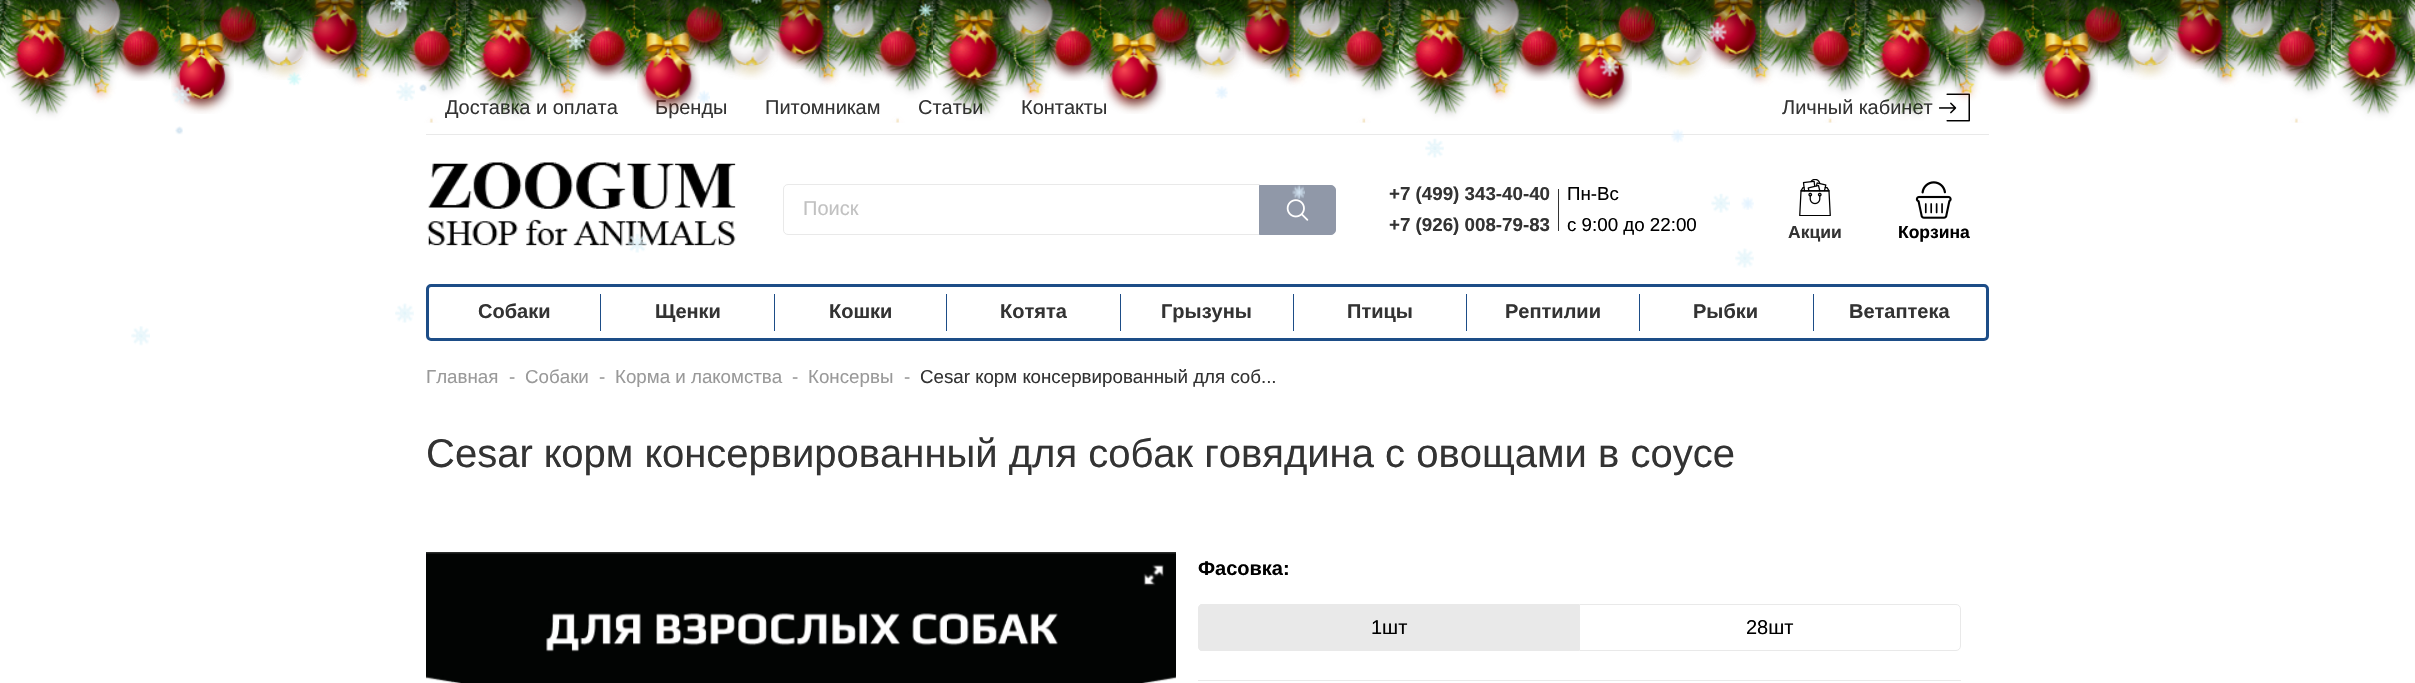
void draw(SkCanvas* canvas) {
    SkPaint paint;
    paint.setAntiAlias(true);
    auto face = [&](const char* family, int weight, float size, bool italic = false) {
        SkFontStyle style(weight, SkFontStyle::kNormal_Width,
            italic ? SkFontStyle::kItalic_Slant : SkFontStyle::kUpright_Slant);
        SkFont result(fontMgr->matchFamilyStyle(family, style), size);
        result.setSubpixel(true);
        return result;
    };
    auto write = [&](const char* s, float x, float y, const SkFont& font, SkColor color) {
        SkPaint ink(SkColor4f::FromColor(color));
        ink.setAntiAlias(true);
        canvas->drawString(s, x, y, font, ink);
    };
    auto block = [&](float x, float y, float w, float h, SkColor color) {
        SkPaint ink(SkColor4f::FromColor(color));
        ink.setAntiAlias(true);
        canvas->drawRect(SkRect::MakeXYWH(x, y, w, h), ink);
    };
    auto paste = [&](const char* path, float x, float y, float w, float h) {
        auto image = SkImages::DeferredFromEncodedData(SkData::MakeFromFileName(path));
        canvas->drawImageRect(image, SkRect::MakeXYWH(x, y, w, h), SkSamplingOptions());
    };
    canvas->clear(SK_ColorWHITE);
    auto kFont1 = face("Liberation Sans", 400, 20);
    write("Доставка и оплата", 445, 114, kFont1, SkColorSetRGB(51, 51, 51));
    write("Бренды", 655, 114, kFont1, SkColorSetRGB(51, 51, 51));
    write("Питомникам", 765, 114, kFont1, SkColorSetRGB(51, 51, 51));
    write("Статьи", 918, 114, kFont1, SkColorSetRGB(51, 51, 51));
    write("Контакты", 1021, 114, kFont1, SkColorSetRGB(51, 51, 51));
    write("Личный кабинет", 1782, 114, kFont1, SkColorSetRGB(51, 51, 51));
    paste("pic95.png", 1939, 93, 31, 29);
    paste("pic15.png", 0, 0, 2415, 123);
    paste("pic20.png", 171, 0, 63, 114);
    paste("pic21.png", 212, 0, 51, 57);
    paste("pic23.png", 255, 0, 56, 80);
    paste("pic25.png", 304, 0, 61, 69);
    paste("pic26.png", 359, 0, 57, 51);
    paste("pic30.png", 406, 2, 52, 79);
    paste("pic28.png", 363, 0, 96, 25);
    paste("pic17.png", 8, 0, 65, 92);
    paste("pic16.png", 0, 0, 32, 79);
    paste("pic19.png", 67, 0, 62, 48);
    paste("pic18.png", 31, 0, 75, 23);
    paste("pic22.png", 221, 0, 36, 28);
    paste("pic24.png", 256, 0, 64, 53);
    paste("pic27.png", 115, 1, 51, 80);
    paste("pic29.png", 459, 0, 8, 76);
    paste("pic32.png", 474, 0, 65, 92);
    paste("pic31.png", 466, 0, 33, 79);
    paste("pic34.png", 534, 0, 61, 48);
    paste("pic33.png", 497, 0, 75, 23);
    paste("pic35.png", 637, 0, 63, 114);
    paste("pic36.png", 678, 0, 51, 57);
    paste("pic38.png", 722, 0, 56, 80);
    paste("pic37.png", 687, 0, 36, 28);
    paste("pic40.png", 771, 0, 60, 69);
    paste("pic39.png", 723, 0, 63, 53);
    paste("pic41.png", 825, 0, 57, 51);
    paste("pic42.png", 581, 1, 51, 80);
    paste("pic45.png", 873, 2, 51, 79);
    paste("pic43.png", 829, 0, 97, 25);
    paste("pic44.png", 925, 0, 8, 76);
    paste("pic47.png", 941, 0, 64, 92);
    paste("pic46.png", 933, 0, 32, 79);
    paste("pic49.png", 1000, 0, 61, 48);
    paste("pic48.png", 963, 0, 76, 23);
    paste("pic50.png", 1103, 0, 63, 114);
    paste("pic51.png", 1145, 0, 51, 57);
    paste("pic53.png", 1188, 0, 56, 80);
    paste("pic52.png", 1153, 0, 36, 29);
    paste("pic55.png", 1237, 0, 61, 69);
    paste("pic54.png", 1189, 0, 63, 53);
    paste("pic56.png", 1292, 0, 57, 51);
    paste("pic57.png", 1047, 1, 51, 80);
    paste("pic60.png", 1339, 2, 51, 79);
    paste("pic58.png", 1296, 0, 95, 25);
    paste("pic59.png", 1390, 0, 9, 76);
    paste("pic62.png", 1407, 0, 65, 92);
    paste("pic61.png", 1399, 0, 32, 79);
    paste("pic64.png", 1466, 0, 61, 48);
    paste("pic63.png", 1430, 0, 75, 23);
    paste("pic65.png", 1569, 0, 63, 114);
    paste("pic66.png", 1611, 0, 51, 57);
    paste("pic68.png", 1654, 0, 57, 80);
    paste("pic67.png", 1620, 0, 36, 28);
    paste("pic70.png", 1703, 0, 61, 69);
    paste("pic69.png", 1655, 0, 63, 53);
    paste("pic71.png", 1758, 0, 57, 51);
    paste("pic72.png", 1513, 1, 52, 80);
    paste("pic75.png", 1805, 2, 52, 79);
    paste("pic73.png", 1762, 0, 96, 25);
    paste("pic74.png", 1857, 0, 9, 76);
    paste("pic77.png", 1873, 0, 65, 92);
    paste("pic76.png", 1864, 0, 33, 79);
    paste("pic79.png", 1933, 0, 60, 48);
    paste("pic78.png", 1896, 0, 75, 24);
    paste("pic80.png", 2036, 0, 62, 114);
    paste("pic81.png", 2077, 0, 51, 57);
    paste("pic83.png", 2120, 0, 56, 80);
    paste("pic82.png", 2086, 0, 36, 29);
    paste("pic85.png", 2169, 0, 61, 69);
    paste("pic84.png", 2121, 0, 64, 53);
    paste("pic86.png", 2224, 0, 57, 51);
    paste("pic87.png", 1980, 1, 51, 80);
    paste("pic90.png", 2271, 2, 52, 79);
    paste("pic88.png", 2228, 0, 96, 25);
    paste("pic89.png", 2323, 0, 8, 76);
    paste("pic92.png", 2339, 0, 65, 92);
    paste("pic91.png", 2330, 0, 33, 79);
    paste("pic94.png", 2399, 0, 16, 46);
    paste("pic93.png", 2362, 0, 53, 23);
    paint.setColor(SkColorSetARGB(191, 0, 0, 0));
    paint.setMaskFilter(SkMaskFilter::MakeBlur(kNormal_SkBlurStyle, 19));
    canvas->drawRect(SkRect::MakeXYWH(0, -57, 2415, 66), paint);
    paint.setMaskFilter(nullptr);
    paste("pic1.png", 390, 0, 19, 13);
    paste("pic2.png", 751, 0, 11, 4);
    paste("pic3.png", 832, 3, 9, 9);
    paste("pic4.png", 918, 3, 15, 14);
    paste("pic5.png", 566, 31, 19, 19);
    paste("pic6.png", 1707, 22, 20, 20);
    paste("pic7.png", 1599, 57, 20, 20);
    paste("pic8.png", 287, 72, 15, 14);
    paste("pic9.png", 172, 84, 20, 20);
    paste("pic10.png", 396, 82, 19, 19);
    paste("pic11.png", 419, 84, 8, 8);
    paste("pic12.png", 697, 90, 13, 14);
    paste("pic13.png", 1215, 86, 13, 13);
    paste("pic14.png", 175, 126, 8, 9);
    block(426, 134, 1563, 1, SkColorSetRGB(233, 233, 233));
    paste("pic96.png", 427, 162, 309, 85);
    paint.setStyle(SkPaint::kStroke_Style);
    paint.setStrokeWidth(1);
    paint.setColor(SkColorSetRGB(233, 233, 233));
    canvas->drawPath(SkPathBuilder().moveTo(788, 184.5f).lineTo(1259.5f, 184.5f).lineTo(1259.5f, 234.5f).lineTo(788, 234.5f).cubicTo(785.5f, 234.5f, 783.5f, 232.5f, 783.5f, 230).lineTo(783.5f, 189).cubicTo(783.5f, 186.5f, 785.5f, 184.5f, 788, 184.5f).close().detach(), paint);
    write("Поиск", 803, 215, kFont1, SkColorSetRGB(193, 193, 193));
    paint.setStyle(SkPaint::kFill_Style);
    paint.setColor(SkColorSetRGB(144, 152, 168));
    canvas->drawPath(SkPathBuilder().moveTo(1259.5f, 185.5f).lineTo(1331, 185.5f).cubicTo(1333.5f, 185.5f, 1335.5f, 187.5f, 1335.5f, 190).lineTo(1335.5f, 230).cubicTo(1335.5f, 232.5f, 1333.5f, 234.5f, 1331, 234.5f).lineTo(1259.5f, 234.5f).close().detach(), paint);
    paint.setStyle(SkPaint::kStroke_Style);
    canvas->drawPath(SkPathBuilder().moveTo(1259.5f, 185.5f).lineTo(1331, 185.5f).cubicTo(1333.5f, 185.5f, 1335.5f, 187.5f, 1335.5f, 190).lineTo(1335.5f, 230).cubicTo(1335.5f, 232.5f, 1333.5f, 234.5f, 1331, 234.5f).lineTo(1259.5f, 234.5f).close().detach(), paint);
    paste("pic97.png", 1286, 199, 23, 22);
    auto kFont2 = face("Liberation Sans", 700, 18.75f);
    write("+7 (499) 343-40-40", 1389, 200, kFont2, SkColorSetRGB(51, 51, 51));
    block(1558, 189, 1, 42, SkColorSetRGB(51, 51, 51));
    write("+7 (926) 008-79-83", 1389, 231, kFont2, SkColorSetRGB(51, 51, 51));
    auto kFont3 = face("Liberation Sans", 400, 18.75f);
    write("Пн-Вс", 1567, 200, kFont3, SK_ColorBLACK);
    write("с 9:00 до 22:00", 1567, 231, kFont3, SK_ColorBLACK);
    paste("pic98.png", 1799, 179, 32, 37);
    auto kFont4 = face("Liberation Sans", 700, 17.5f);
    write("Акции", 1788, 238, kFont4, SkColorSetRGB(51, 51, 51));
    paste("pic99.png", 1915, 181, 37, 38);
    write("Корзина", 1898, 238, kFont4, SK_ColorBLACK);
    paint.setStrokeWidth(3);
    paint.setColor(SkColorSetRGB(29, 77, 135));
    canvas->drawRoundRect(SkRect::MakeXYWH(427.5f, 285.5f, 1560, 54), 3.5f, 3.5f, paint);
    auto kFont5 = face("Liberation Sans", 700, 20);
    write("Собаки", 478, 318, kFont5, SkColorSetRGB(51, 51, 51));
    block(600, 294, 1, 37, SkColorSetRGB(29, 77, 135));
    write("Щенки", 655, 318, kFont5, SkColorSetRGB(51, 51, 51));
    block(774, 294, 1, 37, SkColorSetRGB(29, 77, 135));
    write("Кошки", 829, 318, kFont5, SkColorSetRGB(51, 51, 51));
    block(946, 294, 1, 37, SkColorSetRGB(29, 77, 135));
    write("Котята", 1000, 318, kFont5, SkColorSetRGB(51, 51, 51));
    block(1120, 294, 1, 37, SkColorSetRGB(29, 77, 135));
    write("Грызуны", 1161, 318, kFont5, SkColorSetRGB(51, 51, 51));
    block(1293, 294, 1, 37, SkColorSetRGB(29, 77, 135));
    write("Птицы", 1347, 318, kFont5, SkColorSetRGB(51, 51, 51));
    block(1466, 294, 1, 37, SkColorSetRGB(29, 77, 135));
    write("Рептилии", 1505, 318, kFont5, SkColorSetRGB(51, 51, 51));
    block(1639, 294, 1, 37, SkColorSetRGB(29, 77, 135));
    write("Рыбки", 1693, 318, kFont5, SkColorSetRGB(51, 51, 51));
    block(1813, 294, 1, 37, SkColorSetRGB(29, 77, 135));
    write("Ветаптека", 1849, 318, kFont5, SkColorSetRGB(51, 51, 51));
    write("Главная", 426, 383, kFont3, SkColorSetRGB(153, 153, 153));
    write("-", 509, 383, kFont3, SkColorSetRGB(153, 153, 153));
    write("Собаки", 525, 383, kFont3, SkColorSetRGB(153, 153, 153));
    write("-", 599, 383, kFont3, SkColorSetRGB(153, 153, 153));
    write("Корма и лакомства", 615, 383, kFont3, SkColorSetRGB(153, 153, 153));
    write("-", 792, 383, kFont3, SkColorSetRGB(153, 153, 153));
    write("Консервы", 808, 383, kFont3, SkColorSetRGB(153, 153, 153));
    write("-", 904, 383, kFont3, SkColorSetRGB(153, 153, 153));
    write("Cesar корм консервированный для соб...", 920, 383, kFont3, SkColorSetRGB(51, 51, 51));
    auto kFont6 = face("Liberation Sans", 400, 40);
    write("Cesar корм консервированный для собак говядина с овощами в соусе", 426, 467, kFont6, SkColorSetRGB(51, 51, 51));
    paste("pic100.png", 426, 552, 750, 131);
    paste("pic101.png", 1143, 564, 21, 22);
    write("Фасовка:", 1198, 575, kFont5, SK_ColorBLACK);
    paint.setStyle(SkPaint::kFill_Style);
    paint.setColor(SkColorSetRGB(233, 233, 233));
    canvas->drawPath(SkPathBuilder().moveTo(1203, 604).lineTo(1579, 604).lineTo(1579, 651).lineTo(1203, 651).cubicTo(1200, 651, 1198, 649, 1198, 646).lineTo(1198, 609).cubicTo(1198, 606, 1200, 604, 1203, 604).close().detach(), paint);
    canvas->drawPath(SkPathBuilder(SkPathFillType::kEvenOdd).moveTo(1202, 604).lineTo(1579, 604).lineTo(1579, 651).lineTo(1202, 651).cubicTo(1200, 651, 1198, 649, 1198, 646).lineTo(1198, 609).cubicTo(1198, 606, 1200, 604, 1202, 604).close().moveTo(1202, 605).lineTo(1579, 605).lineTo(1579, 650).lineTo(1202, 650).cubicTo(1200, 650, 1199, 648, 1199, 646).lineTo(1199, 609).cubicTo(1199, 607, 1200, 605, 1202, 605).close().detach(), paint);
    write("1шт", 1371, 634, kFont1, SK_ColorBLACK);
    paint.setStyle(SkPaint::kStroke_Style);
    paint.setStrokeWidth(1);
    canvas->drawPath(SkPathBuilder().moveTo(1579.5f, 604.5f).lineTo(1956, 604.5f).cubicTo(1958.5f, 604.5f, 1960.5f, 606.5f, 1960.5f, 609).lineTo(1960.5f, 646).cubicTo(1960.5f, 648.5f, 1958.5f, 650.5f, 1956, 650.5f).lineTo(1579.5f, 650.5f).close().detach(), paint);
    write("28шт", 1746, 634, kFont1, SK_ColorBLACK);
    block(1198, 680, 763, 1, SkColorSetRGB(233, 233, 233));
    paste("pic102.png", 1671, 129, 13, 14);
    paste("pic103.png", 1425, 138, 19, 20);
    paste("pic104.png", 1292, 185, 13, 14);
    paste("pic105.png", 1711, 193, 19, 20);
    paste("pic106.png", 1741, 197, 13, 13);
    paste("pic107.png", 627, 233, 20, 20);
    paste("pic108.png", 1735, 248, 19, 20);
    paste("pic109.png", 395, 303, 19, 20);
    paste("pic110.png", 131, 326, 19, 20);
}
